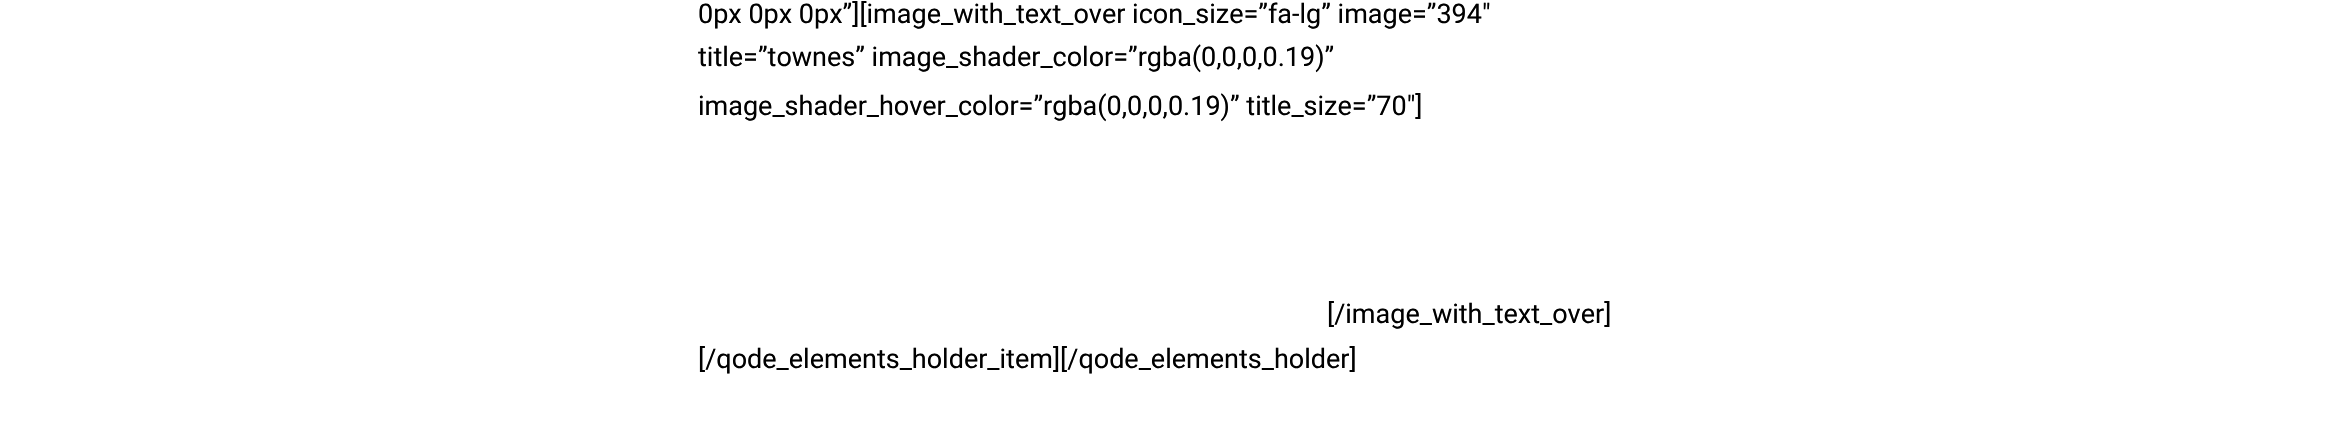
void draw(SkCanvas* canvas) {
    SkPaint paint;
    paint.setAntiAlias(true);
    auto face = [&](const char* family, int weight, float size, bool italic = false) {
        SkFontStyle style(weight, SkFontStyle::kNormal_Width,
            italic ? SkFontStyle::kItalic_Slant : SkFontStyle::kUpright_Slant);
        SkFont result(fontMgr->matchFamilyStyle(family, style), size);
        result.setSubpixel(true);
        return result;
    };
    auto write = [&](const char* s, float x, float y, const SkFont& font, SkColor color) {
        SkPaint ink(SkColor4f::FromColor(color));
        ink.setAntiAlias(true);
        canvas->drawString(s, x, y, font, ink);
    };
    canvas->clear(SK_ColorWHITE);
    auto kFont1 = face("Roboto", 400, 27);
    write("0px 0px 0px”][image_with_text_over icon_size=”fa-lg” image=”394″", 698, 23, kFont1, SK_ColorBLACK);
    write("title=”townes” image_shader_color=”rgba(0,0,0,0.19)”", 698, 66, kFont1, SK_ColorBLACK);
    write("image_shader_hover_color=”rgba(0,0,0,0.19)” title_size=”70″]", 698, 115, kFont1, SK_ColorBLACK);
    write("[/image_with_text_over]", 1327, 323, kFont1, SK_ColorBLACK);
    write("[/qode_elements_holder_item][/qode_elements_holder]", 698, 368, kFont1, SK_ColorBLACK);
}
